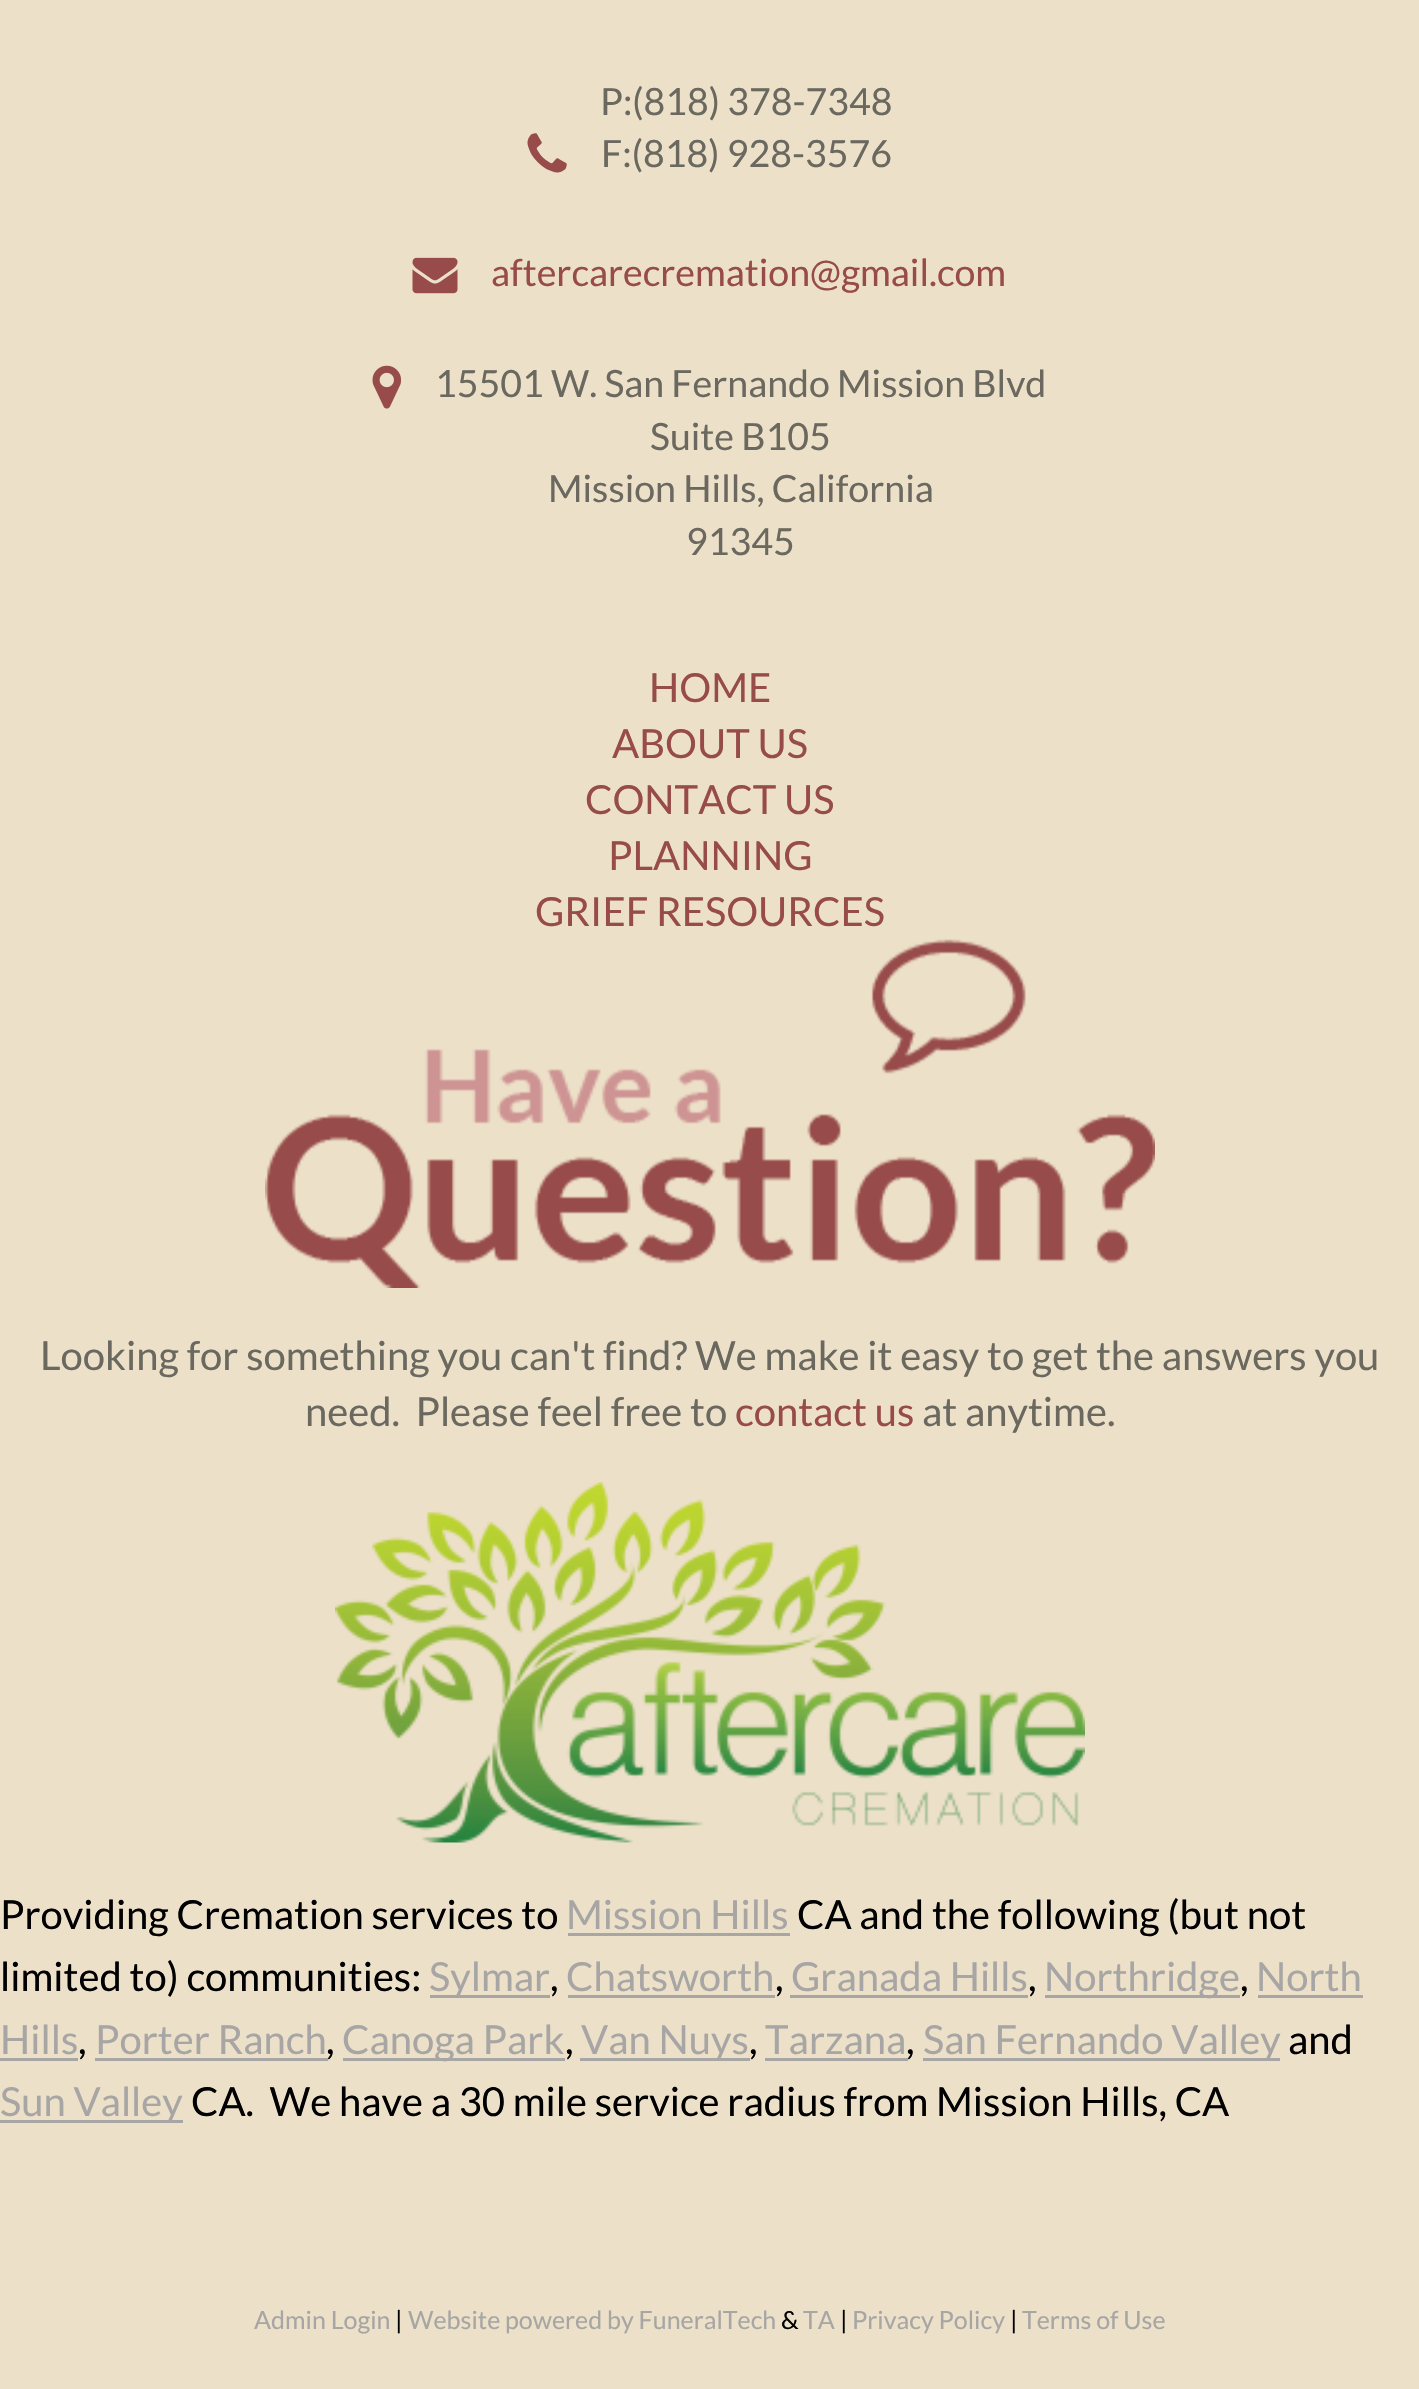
void draw(SkCanvas* canvas) {
    SkPaint paint;
    paint.setAntiAlias(true);
    auto face = [&](const char* family, int weight, float size, bool italic = false) {
        SkFontStyle style(weight, SkFontStyle::kNormal_Width,
            italic ? SkFontStyle::kItalic_Slant : SkFontStyle::kUpright_Slant);
        SkFont result(fontMgr->matchFamilyStyle(family, style), size);
        result.setSubpixel(true);
        return result;
    };
    auto write = [&](const char* s, float x, float y, const SkFont& font, SkColor color) {
        SkPaint ink(SkColor4f::FromColor(color));
        ink.setAntiAlias(true);
        canvas->drawString(s, x, y, font, ink);
    };
    auto block = [&](float x, float y, float w, float h, SkColor color) {
        SkPaint ink(SkColor4f::FromColor(color));
        ink.setAntiAlias(true);
        canvas->drawRect(SkRect::MakeXYWH(x, y, w, h), ink);
    };
    auto paste = [&](const char* path, float x, float y, float w, float h) {
        auto image = SkImages::DeferredFromEncodedData(SkData::MakeFromFileName(path));
        canvas->drawImageRect(image, SkRect::MakeXYWH(x, y, w, h), SkSamplingOptions());
    };
    canvas->clear(SkColorSetRGB(236, 224, 200));
    paste("pic1.png", 527, 133, 40, 40);
    auto kFont1 = face("Lato", 400, 37.5f);
    write("P:(818) 378-7348", 600, 115, kFont1, SkColorSetRGB(106, 104, 95));
    write("F:(818) 928-3576", 601, 167, kFont1, SkColorSetRGB(106, 104, 95));
    paste("pic2.png", 412, 257, 46, 37);
    write("aftercarecremation@gmail.com", 491, 286, kFont1, SkColorSetRGB(151, 75, 75));
    paste("pic3.png", 372, 365, 30, 44);
    write("15501 W. San Fernando Mission Blvd", 435, 397, kFont1, SkColorSetRGB(106, 104, 95));
    write("Suite B105", 650, 450, kFont1, SkColorSetRGB(106, 104, 95));
    write("Mission Hills, California", 548, 502, kFont1, SkColorSetRGB(106, 104, 95));
    write("91345", 686, 555, kFont1, SkColorSetRGB(106, 104, 95));
    auto kFont2 = face("Lato", 400, 40);
    write("HOME", 649, 702, kFont2, SkColorSetRGB(151, 75, 75));
    write("ABOUT US", 612, 758, kFont2, SkColorSetRGB(151, 75, 75));
    write("CONTACT US", 585, 814, kFont2, SkColorSetRGB(151, 75, 75));
    write("PLANNING", 608, 870, kFont2, SkColorSetRGB(151, 75, 75));
    write("GRIEF RESOURCES", 535, 926, kFont2, SkColorSetRGB(151, 75, 75));
    paste("pic4.png", 265, 939, 890, 349);
    write("Looking for something you can't find? We make it easy to get the answers you", 40, 1370, kFont2, SkColorSetRGB(106, 104, 95));
    write("need.  Please feel free to", 305, 1426, kFont2, SkColorSetRGB(106, 104, 95));
    write("contact us", 735, 1426, kFont2, SkColorSetRGB(151, 75, 75));
    write("at anytime.", 922, 1426, kFont2, SkColorSetRGB(106, 104, 95));
    paste("pic5.png", 335, 1482, 750, 361);
    write("Providing Cremation services to", 0, 1929, kFont2, SK_ColorBLACK);
    write("Mission Hills", 566, 1929, kFont2, SkColorSetRGB(167, 166, 165));
    block(568, 1933, 222, 3, SkColorSetRGB(167, 166, 165));
    write("CA and the following (but not", 797, 1929, kFont2, SK_ColorBLACK);
    write("limited to) communities:", 0, 1991, kFont2, SK_ColorBLACK);
    block(430, 1995, 120, 3, SkColorSetRGB(167, 166, 165));
    write("Sylmar", 429, 1991, kFont2, SkColorSetRGB(167, 166, 165));
    write(",", 550, 1991, kFont2, SK_ColorBLACK);
    write("Chatsworth", 566, 1991, kFont2, SkColorSetRGB(167, 166, 165));
    block(568, 1995, 207, 3, SkColorSetRGB(167, 166, 165));
    write(",", 775, 1991, kFont2, SK_ColorBLACK);
    write("Granada Hills", 791, 1991, kFont2, SkColorSetRGB(167, 166, 165));
    block(790, 1995, 238, 3, SkColorSetRGB(167, 166, 165));
    write(",", 1028, 1991, kFont2, SK_ColorBLACK);
    block(1045, 1995, 195, 3, SkColorSetRGB(167, 166, 165));
    write("Northridge", 1044, 1991, kFont2, SkColorSetRGB(167, 166, 165));
    write(",", 1240, 1991, kFont2, SK_ColorBLACK);
    write("North", 1256, 1991, kFont2, SkColorSetRGB(167, 166, 165));
    block(1258, 1995, 105, 3, SkColorSetRGB(167, 166, 165));
    write("Hills", 0, 2054, kFont2, SkColorSetRGB(167, 166, 165));
    block(0, 2058, 78, 3, SkColorSetRGB(167, 166, 165));
    write(",", 78, 2054, kFont2, SK_ColorBLACK);
    write("Porter Ranch", 95, 2054, kFont2, SkColorSetRGB(167, 166, 165));
    block(95, 2058, 233, 3, SkColorSetRGB(167, 166, 165));
    write(",", 326, 2054, kFont2, SK_ColorBLACK);
    block(343, 2058, 222, 3, SkColorSetRGB(167, 166, 165));
    write("Canoga Park", 342, 2054, kFont2, SkColorSetRGB(167, 166, 165));
    write(",", 565, 2054, kFont2, SK_ColorBLACK);
    block(580, 2058, 170, 3, SkColorSetRGB(167, 166, 165));
    write("Van Nuys", 581, 2054, kFont2, SkColorSetRGB(167, 166, 165));
    write(",", 749, 2054, kFont2, SK_ColorBLACK);
    write("Tarzana", 765, 2054, kFont2, SkColorSetRGB(167, 166, 165));
    block(765, 2058, 143, 3, SkColorSetRGB(167, 166, 165));
    write(",", 906, 2054, kFont2, SK_ColorBLACK);
    block(923, 2058, 357, 3, SkColorSetRGB(167, 166, 165));
    write("San Fernando Valley", 923, 2054, kFont2, SkColorSetRGB(167, 166, 165));
    write("and", 1288, 2054, kFont2, SK_ColorBLACK);
    block(0, 2120, 183, 3, SkColorSetRGB(167, 166, 165));
    write("Sun Valley", 0, 2116, kFont2, SkColorSetRGB(167, 166, 165));
    write("CA.  We have a 30 mile service radius from Mission Hills, CA", 191, 2116, kFont2, SK_ColorBLACK);
    auto kFont3 = face("Lato", 400, 25);
    write("Admin Login", 254, 2329, kFont3, SkColorSetRGB(167, 166, 165));
    write("|", 395, 2329, kFont3, SK_ColorBLACK);
    write("Website powered by FuneralTech", 408, 2329, kFont3, SkColorSetRGB(167, 166, 165));
    write("&", 781, 2329, kFont3, SK_ColorBLACK);
    write("TA", 803, 2329, kFont3, SkColorSetRGB(167, 166, 165));
    write("|", 840, 2329, kFont3, SK_ColorBLACK);
    write("Privacy Policy", 852, 2329, kFont3, SkColorSetRGB(167, 166, 165));
    write("|", 1010, 2329, kFont3, SK_ColorBLACK);
    write("Terms of Use", 1022, 2329, kFont3, SkColorSetRGB(167, 166, 165));
}
